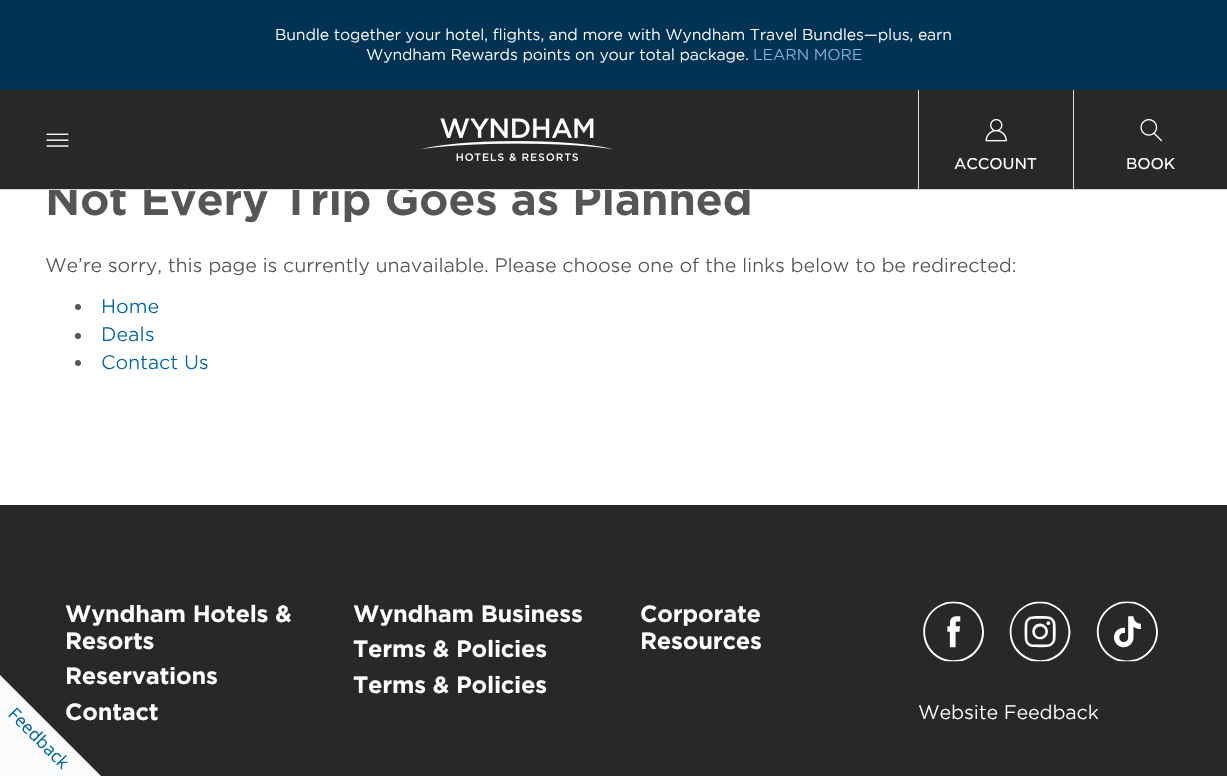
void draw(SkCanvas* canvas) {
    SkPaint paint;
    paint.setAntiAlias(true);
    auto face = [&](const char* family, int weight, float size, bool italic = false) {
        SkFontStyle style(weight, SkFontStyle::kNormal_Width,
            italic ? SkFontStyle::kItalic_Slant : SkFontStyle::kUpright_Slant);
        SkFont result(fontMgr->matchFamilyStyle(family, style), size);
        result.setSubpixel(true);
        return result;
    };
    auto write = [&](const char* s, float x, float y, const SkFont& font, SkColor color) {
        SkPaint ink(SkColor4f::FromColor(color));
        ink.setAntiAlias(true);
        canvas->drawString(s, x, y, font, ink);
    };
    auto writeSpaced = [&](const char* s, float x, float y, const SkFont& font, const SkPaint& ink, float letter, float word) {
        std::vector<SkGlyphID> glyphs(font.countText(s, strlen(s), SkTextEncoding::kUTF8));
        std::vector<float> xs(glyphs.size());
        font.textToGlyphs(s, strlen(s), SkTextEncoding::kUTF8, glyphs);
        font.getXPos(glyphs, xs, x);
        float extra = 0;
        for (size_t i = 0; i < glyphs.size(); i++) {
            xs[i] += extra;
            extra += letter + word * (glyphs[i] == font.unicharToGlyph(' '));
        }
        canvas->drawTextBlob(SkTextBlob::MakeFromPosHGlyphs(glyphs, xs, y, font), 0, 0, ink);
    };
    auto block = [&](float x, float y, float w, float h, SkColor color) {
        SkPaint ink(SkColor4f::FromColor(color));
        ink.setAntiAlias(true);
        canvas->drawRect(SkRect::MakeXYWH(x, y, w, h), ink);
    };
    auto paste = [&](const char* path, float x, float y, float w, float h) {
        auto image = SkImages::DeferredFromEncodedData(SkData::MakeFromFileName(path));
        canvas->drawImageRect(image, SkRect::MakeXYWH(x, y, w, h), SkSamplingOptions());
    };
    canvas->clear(SK_ColorWHITE);
    block(0, 0, 1227, 90, SkColorSetRGB(0, 51, 83));
    auto kFont1 = face("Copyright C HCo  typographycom", 300, 15);
    paint.setColor(SK_ColorWHITE);
    writeSpaced("Bundle together your hotel, flights, and more with Wyndham Travel Bundles—plus, earn", 275, 40, kFont1, paint, -0.15f, 0);
    writeSpaced("Wyndham Rewards points on your total package.", 366, 60, kFont1, paint, -0.15f, 0);
    paint.setColor(SkColorSetRGB(127, 185, 222));
    writeSpaced("LEARN MORE", 753, 60, kFont1, paint, -0.15f, 0);
    auto kFont2 = face("Copyright C HCo  typographycom", 400, 42.5f);
    paint.setColor(SkColorSetRGB(85, 85, 85));
    writeSpaced("Not Every Trip Goes as Planned", 45, 215, kFont2, paint, -0.4f, 0);
    block(0, 90, 1227, 99, SkColorSetRGB(40, 40, 40));
    block(0, 189, 1227, 1, SkColorSetRGB(217, 217, 217));
    paste("pic1.png", 46, 133, 23, 14);
    paste("pic2.png", 421, 118, 192, 43);
    block(918, 90, 1, 100, SkColorSetRGB(217, 217, 217));
    paste("pic3.png", 985, 119, 22, 23);
    auto kFont3 = face("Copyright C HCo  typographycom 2", 300, 15);
    paint.setColor(SK_ColorWHITE);
    writeSpaced("ACCOUNT", 954, 169, kFont3, paint, -0.15f, 0);
    block(1073, 90, 1, 100, SkColorSetRGB(217, 217, 217));
    paste("pic4.png", 1140, 119, 22, 23);
    writeSpaced("BOOK", 1126, 169, kFont3, paint, -0.15f, 0);
    auto kFont4 = face("Copyright C HCo  typographycom", 300, 18.75f);
    paint.setColor(SkColorSetRGB(85, 85, 85));
    writeSpaced("We’re sorry, this page is currently unavailable. Please choose one of the links below to be redirected:", 45, 272, kFont4, paint, -0.19f, 0);
    canvas->drawCircle(78, 307, 3, paint);
    write("Home", 101, 313, kFont4, SkColorSetRGB(0, 101, 171));
    canvas->drawCircle(78, 336, 3, paint);
    write("Deals", 101, 341, kFont4, SkColorSetRGB(0, 101, 171));
    canvas->drawCircle(78, 363, 3, paint);
    paint.setColor(SkColorSetRGB(0, 101, 171));
    writeSpaced("Contact Us", 101, 369, kFont4, paint, -0.19f, 0);
    block(0, 505, 1227, 271, SkColorSetRGB(40, 40, 40));
    auto kFont5 = face("Copyright C HCo  typographycom", 400, 22.5f);
    paint.setColor(SK_ColorWHITE);
    writeSpaced("Wyndham Hotels &", 65, 622, kFont5, paint, -0.25f, 0);
    writeSpaced("Resorts", 65, 649, kFont5, paint, -0.25f, 0);
    writeSpaced("Reservations", 65, 684, kFont5, paint, -0.25f, 0);
    writeSpaced("Contact", 65, 720, kFont5, paint, -0.25f, 0);
    writeSpaced("Wyndham Business", 353, 622, kFont5, paint, -0.25f, 0);
    writeSpaced("Terms & Policies", 353, 657, kFont5, paint, -0.25f, 0);
    writeSpaced("Terms & Policies", 353, 693, kFont5, paint, -0.25f, 0);
    writeSpaced("Corporate", 640, 622, kFont5, paint, -0.25f, 0);
    writeSpaced("Resources", 640, 649, kFont5, paint, -0.25f, 0);
    paste("pic5.png", 923, 601, 61, 61);
    paste("pic6.png", 1009, 601, 62, 61);
    paste("pic7.png", 1096, 601, 62, 61);
    writeSpaced("Website Feedback", 918, 719, kFont4, paint, -0.19f, 0);
    paint.setColor(SkColorSetRGB(249, 251, 252));
    canvas->drawPath(SkPathBuilder().moveTo(101, 776).lineTo(0, 776).lineTo(0, 675).close().detach(), paint);
    auto kFont6 = face("Open Sans", 400, 17.5f);
    canvas->save();
    canvas->rotate(45, 7, 715);
    write("Feedback", 7, 715, kFont6, SkColorSetRGB(0, 101, 171));
    canvas->restore();
}
